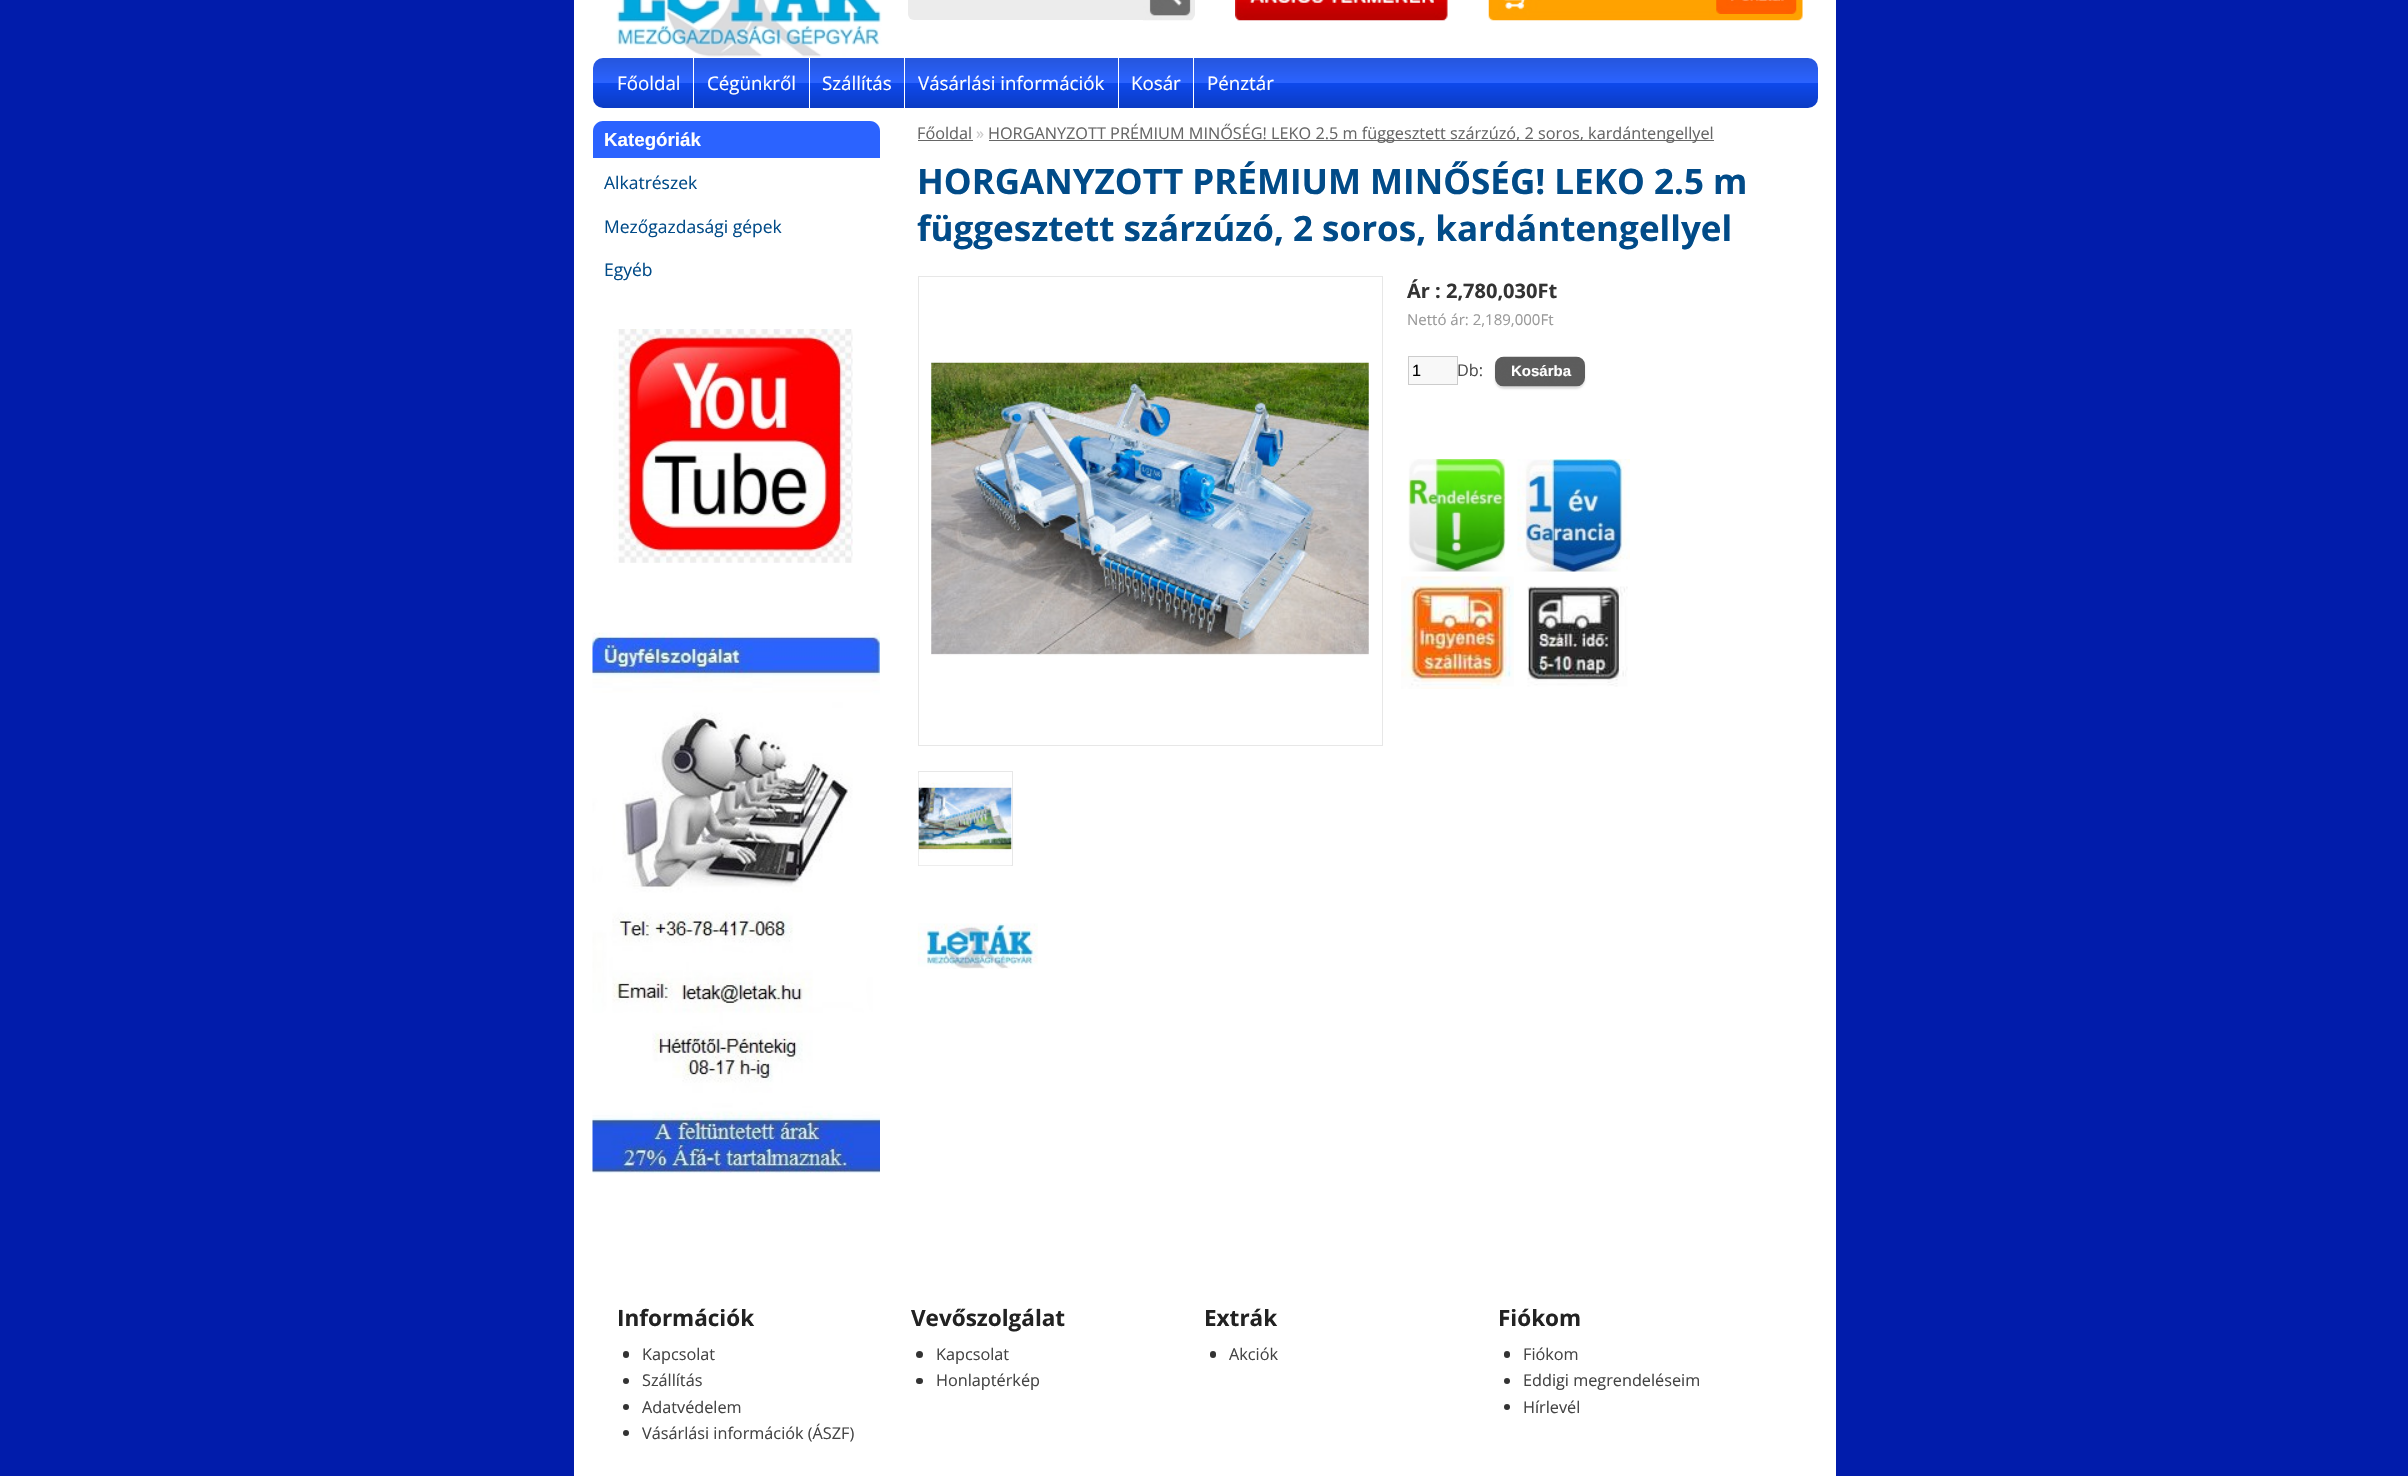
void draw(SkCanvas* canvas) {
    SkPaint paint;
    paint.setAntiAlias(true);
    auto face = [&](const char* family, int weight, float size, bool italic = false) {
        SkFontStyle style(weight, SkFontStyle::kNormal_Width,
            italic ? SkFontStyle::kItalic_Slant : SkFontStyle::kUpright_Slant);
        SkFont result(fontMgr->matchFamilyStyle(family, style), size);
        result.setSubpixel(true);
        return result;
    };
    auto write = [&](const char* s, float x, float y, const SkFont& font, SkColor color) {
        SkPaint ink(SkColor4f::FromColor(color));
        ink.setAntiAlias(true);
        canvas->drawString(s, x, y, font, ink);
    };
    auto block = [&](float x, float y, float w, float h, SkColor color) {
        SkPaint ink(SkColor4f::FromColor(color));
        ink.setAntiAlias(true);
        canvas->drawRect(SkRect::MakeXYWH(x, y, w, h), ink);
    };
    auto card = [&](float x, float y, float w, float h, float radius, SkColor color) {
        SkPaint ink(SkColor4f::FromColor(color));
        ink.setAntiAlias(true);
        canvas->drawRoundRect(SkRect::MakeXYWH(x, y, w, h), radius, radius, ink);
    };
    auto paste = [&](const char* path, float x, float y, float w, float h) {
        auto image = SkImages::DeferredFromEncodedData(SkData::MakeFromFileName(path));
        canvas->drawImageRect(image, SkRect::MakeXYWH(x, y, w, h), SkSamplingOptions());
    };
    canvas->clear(SkColorSetRGB(1, 28, 171));
    block(574, 0, 1262, 1476, SK_ColorWHITE);
    paste("pic1.png", 616, 0, 266, 57);
    card(908, -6, 287, 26, 6, SkColorSetRGB(236, 236, 236));
    paste("pic2.png", 1143, 0, 50, 21);
    paste("pic3.png", 1235, 0, 213, 21);
    paste("pic4.png", 1488, 0, 315, 21);
    paste("pic5.png", 1716, 0, 81, 14);
    {
        const SkColor colors[] = {SkColorSetRGB(37, 85, 219), SkColorSetRGB(43, 99, 255), SkColorSetRGB(14, 73, 237), SkColorSetRGB(11, 59, 195)};
        const float stops[] = {0, 0.5f, 0.51f, 1};
        const SkPoint ends[] = {{1205, 57}, {1205, 108}};
        paint.setShader(SkGradientShader::MakeLinear(ends, colors, stops, 4, SkTileMode::kClamp));
        paint.setAlpha(255);
    }
    canvas->drawRoundRect(SkRect::MakeXYWH(593, 58, 1225, 50), 10, 10, paint);
    auto kFont1 = face("Open Sans", 400, 18.75f);
    write("Főoldal", 617, 90, kFont1, SK_ColorWHITE);
    block(693, 58, 1, 50, SK_ColorWHITE);
    write("Cégünkről", 707, 90, kFont1, SK_ColorWHITE);
    block(809, 58, 1, 50, SK_ColorWHITE);
    write("Szállítás", 822, 90, kFont1, SK_ColorWHITE);
    block(904, 58, 1, 50, SK_ColorWHITE);
    write("Vásárlási információk", 918, 90, kFont1, SK_ColorWHITE);
    block(1118, 58, 1, 50, SK_ColorWHITE);
    write("Kosár", 1131, 90, kFont1, SK_ColorWHITE);
    block(1193, 58, 1, 50, SK_ColorWHITE);
    write("Pénztár", 1207, 90, kFont1, SK_ColorWHITE);
    paint.setShader(nullptr);
    paint.setColor(SkColorSetRGB(43, 99, 255));
    canvas->drawPath(SkPathBuilder().moveTo(603, 121).lineTo(870, 121).cubicTo(875.5f, 121, 880, 125.5f, 880, 131).lineTo(880, 158).lineTo(593, 158).lineTo(593, 131).cubicTo(593, 125.5f, 597.5f, 121, 603, 121).close().detach(), paint);
    auto kFont2 = face("Liberation Sans", 700, 18.75f);
    write("Kategóriák", 604, 146, kFont2, SK_ColorWHITE);
    auto kFont3 = face("Open Sans", 400, 17.5f);
    write("Alkatrészek", 604, 189, kFont3, SkColorSetRGB(1, 75, 136));
    write("Mezőgazdasági gépek", 604, 233, kFont3, SkColorSetRGB(1, 75, 136));
    write("Egyéb", 604, 276, kFont3, SkColorSetRGB(1, 75, 136));
    paste("pic6.png", 613, 329, 240, 234);
    paste("pic7.png", 592, 632, 288, 542);
    auto kFont4 = face("Open Sans", 400, 16.25f);
    write("Főoldal", 917, 139, kFont4, SkColorSetRGB(102, 102, 102));
    block(918, 140, 55, 1, SkColorSetRGB(102, 102, 102));
    write("»", 976, 139, kFont4, SkColorSetRGB(204, 204, 204));
    block(989, 140, 725, 1, SkColorSetRGB(102, 102, 102));
    write("HORGANYZOTT PRÉMIUM MINŐSÉG! LEKO 2.5 m függesztett szárzúzó, 2 soros, kardántengellyel", 988, 139, kFont4, SkColorSetRGB(102, 102, 102));
    auto kFont5 = face("Open Sans", 700, 35);
    write("HORGANYZOTT PRÉMIUM MINŐSÉG! LEKO 2.5 m", 917, 194, kFont5, SkColorSetRGB(1, 75, 136));
    write("függesztett szárzúzó, 2 soros, kardántengellyel", 917, 241, kFont5, SkColorSetRGB(1, 75, 136));
    paint.setStyle(SkPaint::kStroke_Style);
    paint.setStrokeWidth(1);
    paint.setColor(SkColorSetRGB(231, 231, 231));
    canvas->drawRect(SkRect::MakeXYWH(918.5f, 276.5f, 464, 469), paint);
    paste("pic8.png", 931, 360, 438, 296);
    canvas->drawRect(SkRect::MakeXYWH(918.5f, 771.5f, 94, 94), paint);
    paste("pic9.png", 918, 773, 94, 93);
    auto kFont6 = face("Open Sans", 700, 20);
    write("Ár : 2,780,030Ft", 1407, 298, kFont6, SkColorSetRGB(51, 51, 51));
    auto kFont7 = face("Open Sans", 400, 15);
    write("Nettó ár: 2,189,000Ft", 1407, 325, kFont7, SkColorSetRGB(153, 153, 153));
    paint.setStyle(SkPaint::kFill_Style);
    paint.setColor(SkColorSetRGB(248, 248, 248));
    canvas->drawRect(SkRect::MakeXYWH(1408.5f, 356.5f, 49, 28), paint);
    paint.setStyle(SkPaint::kStroke_Style);
    paint.setColor(SkColorSetRGB(204, 204, 204));
    canvas->drawRect(SkRect::MakeXYWH(1408.5f, 356.5f, 49, 28), paint);
    auto kFont8 = face("Liberation Sans", 400, 16.25f);
    write("1", 1412, 376, kFont8, SK_ColorBLACK);
    write("Db:", 1457, 376, kFont4, SkColorSetRGB(77, 77, 77));
    paint.setStyle(SkPaint::kFill_Style);
    paint.setColor(SkColorSetRGB(221, 221, 221));
    paint.setMaskFilter(SkMaskFilter::MakeBlur(kNormal_SkBlurStyle, 1));
    canvas->drawRoundRect(SkRect::MakeXYWH(1495, 359, 90, 30), 9, 9, paint);
    paint.setMaskFilter(nullptr);
    paste("pic10.png", 1495, 356, 90, 31);
    auto kFont9 = face("Liberation Sans", 700, 15);
    write("Kosárba", 1511, 376, kFont9, SK_ColorWHITE);
    paste("pic11.png", 1408, 459, 98, 113);
    paste("pic12.png", 1517, 459, 113, 113);
    paste("pic13.png", 1401, 576, 113, 113);
    paste("pic14.png", 1527, 586, 101, 101);
    paste("pic15.png", 917, 923, 121, 46);
    auto kFont10 = face("Open Sans", 700, 22.5f);
    write("Információk", 617, 1326, kFont10, SkColorSetRGB(34, 34, 34));
    card(623, 1351, 6, 7, 3, SkColorSetRGB(51, 51, 51));
    write("Kapcsolat", 642, 1360, kFont4, SkColorSetRGB(68, 68, 68));
    paint.setColor(SkColorSetRGB(51, 51, 51));
    canvas->drawCircle(626, 1381, 3, paint);
    write("Szállítás", 642, 1386, kFont4, SkColorSetRGB(68, 68, 68));
    canvas->drawCircle(626, 1407, 3, paint);
    write("Adatvédelem", 642, 1413, kFont4, SkColorSetRGB(68, 68, 68));
    canvas->drawCircle(626, 1433, 3, paint);
    write("Vásárlási információk (ÁSZF)", 642, 1439, kFont4, SkColorSetRGB(68, 68, 68));
    write("Vevőszolgálat", 911, 1326, kFont10, SkColorSetRGB(34, 34, 34));
    canvas->drawCircle(919.5f, 1354.5f, 3.5f, paint);
    write("Kapcsolat", 936, 1360, kFont4, SkColorSetRGB(68, 68, 68));
    card(916, 1378, 7, 6, 3, SkColorSetRGB(51, 51, 51));
    write("Honlaptérkép", 936, 1386, kFont4, SkColorSetRGB(68, 68, 68));
    write("Extrák", 1204, 1326, kFont10, SkColorSetRGB(34, 34, 34));
    card(1210, 1351, 6, 7, 3, SkColorSetRGB(51, 51, 51));
    write("Akciók", 1229, 1360, kFont4, SkColorSetRGB(68, 68, 68));
    write("Fiókom", 1498, 1326, kFont10, SkColorSetRGB(34, 34, 34));
    card(1504, 1351, 6, 7, 3, SkColorSetRGB(51, 51, 51));
    write("Fiókom", 1523, 1360, kFont4, SkColorSetRGB(68, 68, 68));
    canvas->drawCircle(1507, 1381, 3, paint);
    write("Eddigi megrendeléseim", 1523, 1386, kFont4, SkColorSetRGB(68, 68, 68));
    canvas->drawCircle(1507, 1407, 3, paint);
    write("Hírlevél", 1523, 1413, kFont4, SkColorSetRGB(68, 68, 68));
}
